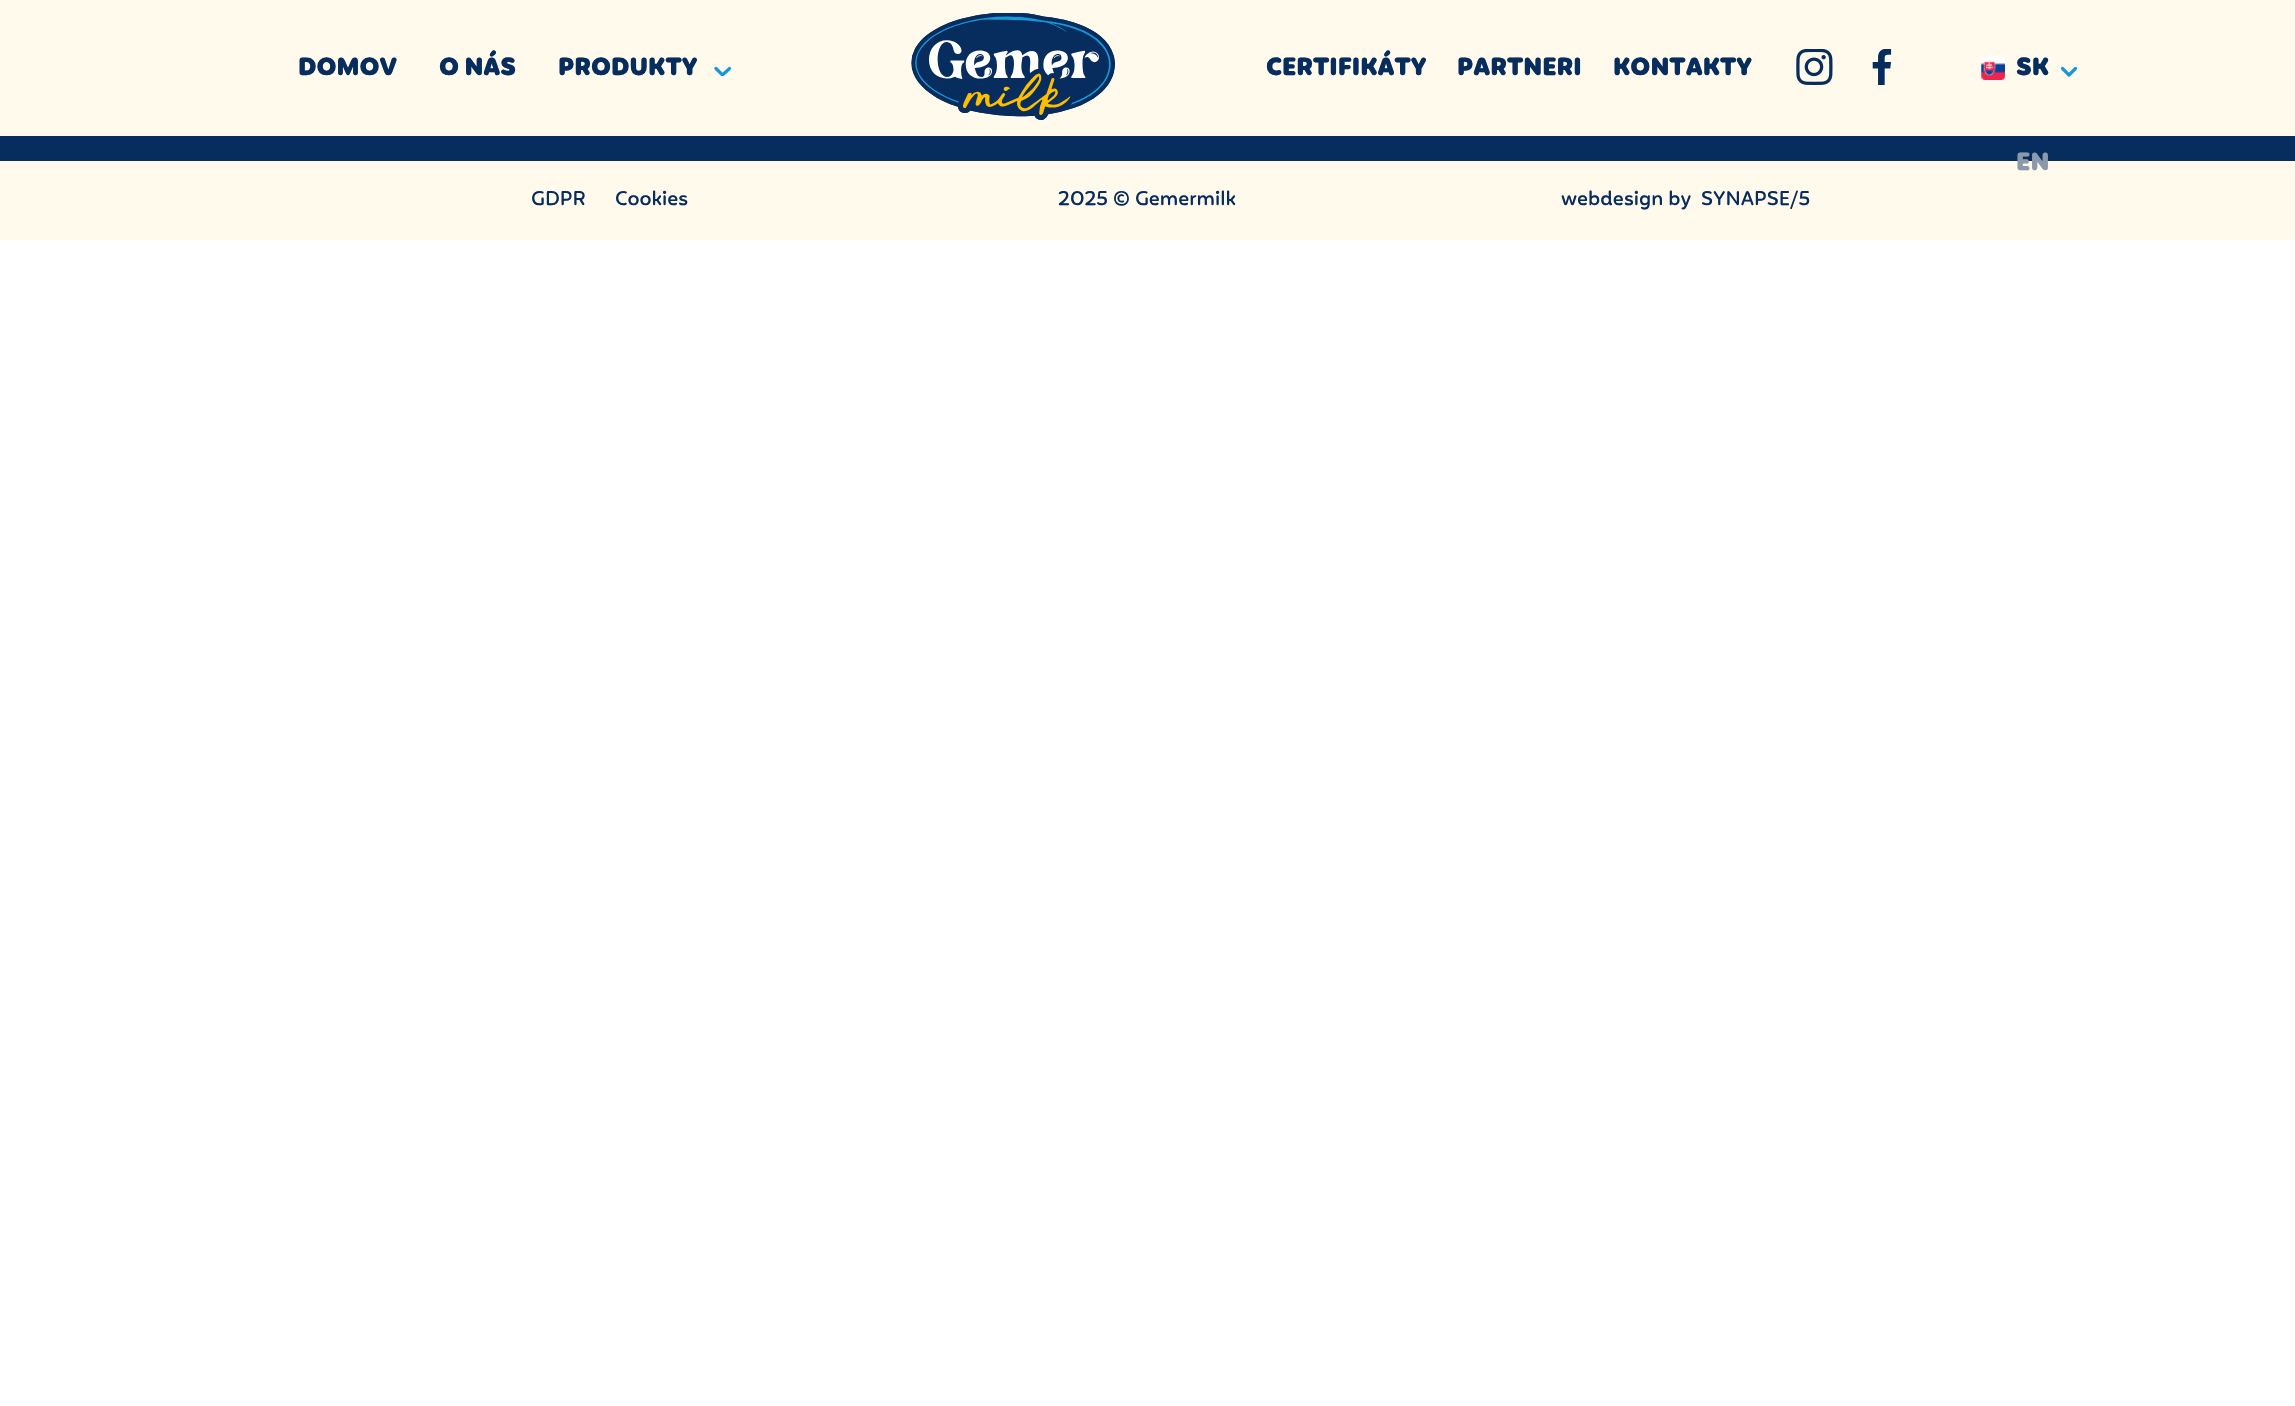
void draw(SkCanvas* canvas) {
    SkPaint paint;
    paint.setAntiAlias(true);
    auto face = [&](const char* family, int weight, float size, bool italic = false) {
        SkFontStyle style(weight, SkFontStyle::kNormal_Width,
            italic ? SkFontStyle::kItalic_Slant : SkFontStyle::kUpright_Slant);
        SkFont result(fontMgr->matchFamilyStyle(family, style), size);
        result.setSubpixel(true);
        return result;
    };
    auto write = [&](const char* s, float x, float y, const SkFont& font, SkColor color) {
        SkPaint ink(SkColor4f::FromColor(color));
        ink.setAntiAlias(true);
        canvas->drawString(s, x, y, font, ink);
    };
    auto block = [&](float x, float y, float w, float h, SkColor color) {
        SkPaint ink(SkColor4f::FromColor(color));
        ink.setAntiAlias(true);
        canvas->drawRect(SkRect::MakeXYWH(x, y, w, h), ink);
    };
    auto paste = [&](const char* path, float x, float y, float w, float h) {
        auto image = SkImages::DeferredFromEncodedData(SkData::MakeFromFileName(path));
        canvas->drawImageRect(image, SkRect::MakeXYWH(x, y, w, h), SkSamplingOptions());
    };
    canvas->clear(SK_ColorWHITE);
    block(0, 0, 2295, 136, SkColorSetRGB(255, 250, 236));
    auto kFont1 = face("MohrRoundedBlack", 900, 24);
    write("DOMOV", 298, 75, kFont1, SkColorSetRGB(7, 45, 95));
    write("O NÁS", 439, 75, kFont1, SkColorSetRGB(7, 45, 95));
    write("PRODUKTY", 558, 75, kFont1, SkColorSetRGB(7, 45, 95));
    canvas->save();
    canvas->clipRect(SkRect::MakeXYWH(714, 66, 19, 10));
    paint.setStyle(SkPaint::kStroke_Style);
    paint.setStrokeWidth(3.2f);
    paint.setStrokeCap(SkPaint::kRound_Cap);
    paint.setStrokeJoin(SkPaint::kRound_Join);
    paint.setColor(SkColorSetRGB(22, 153, 218));
    canvas->drawPath(SkPathBuilder().moveTo(716, 68.5f).lineTo(722.5f, 75).lineTo(729.5f, 68.5f).detach(), paint);
    canvas->restore();
    paste("pic1.png", 911, 13, 204, 107);
    write("CERTIFIKÁTY", 1266, 75, kFont1, SkColorSetRGB(7, 45, 95));
    write("PARTNERI", 1457, 75, kFont1, SkColorSetRGB(7, 45, 95));
    write("KONTAKTY", 1613, 75, kFont1, SkColorSetRGB(7, 45, 95));
    paste("pic2.png", 1796, 49, 37, 36);
    paste("pic3.png", 1872, 49, 20, 36);
    paste("pic4.png", 1981, 56, 24, 24);
    write("SK", 2016, 75, kFont1, SkColorSetRGB(7, 45, 95));
    canvas->drawPath(SkPathBuilder().moveTo(2062.5f, 68.5f).lineTo(2069, 75).lineTo(2075.5f, 68.5f).detach(), paint);
    block(0, 136, 2295, 25, SkColorSetRGB(7, 45, 95));
    block(0, 161, 2295, 79, SkColorSetRGB(255, 250, 236));
    write("EN", 2016, 170, kFont1, SkColorSetRGB(138, 154, 170));
    auto kFont2 = face("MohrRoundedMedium", 500, 19.1f);
    write("GDPR", 531, 205, kFont2, SkColorSetRGB(7, 45, 95));
    write("Cookies", 615, 205, kFont2, SkColorSetRGB(7, 45, 95));
    write("2025 © Gemermilk", 1058, 205, kFont2, SkColorSetRGB(7, 45, 95));
    write("webdesign by", 1561, 205, kFont2, SkColorSetRGB(7, 45, 95));
    write("SYNAPSE/5", 1701, 205, kFont2, SkColorSetRGB(7, 45, 95));
}
